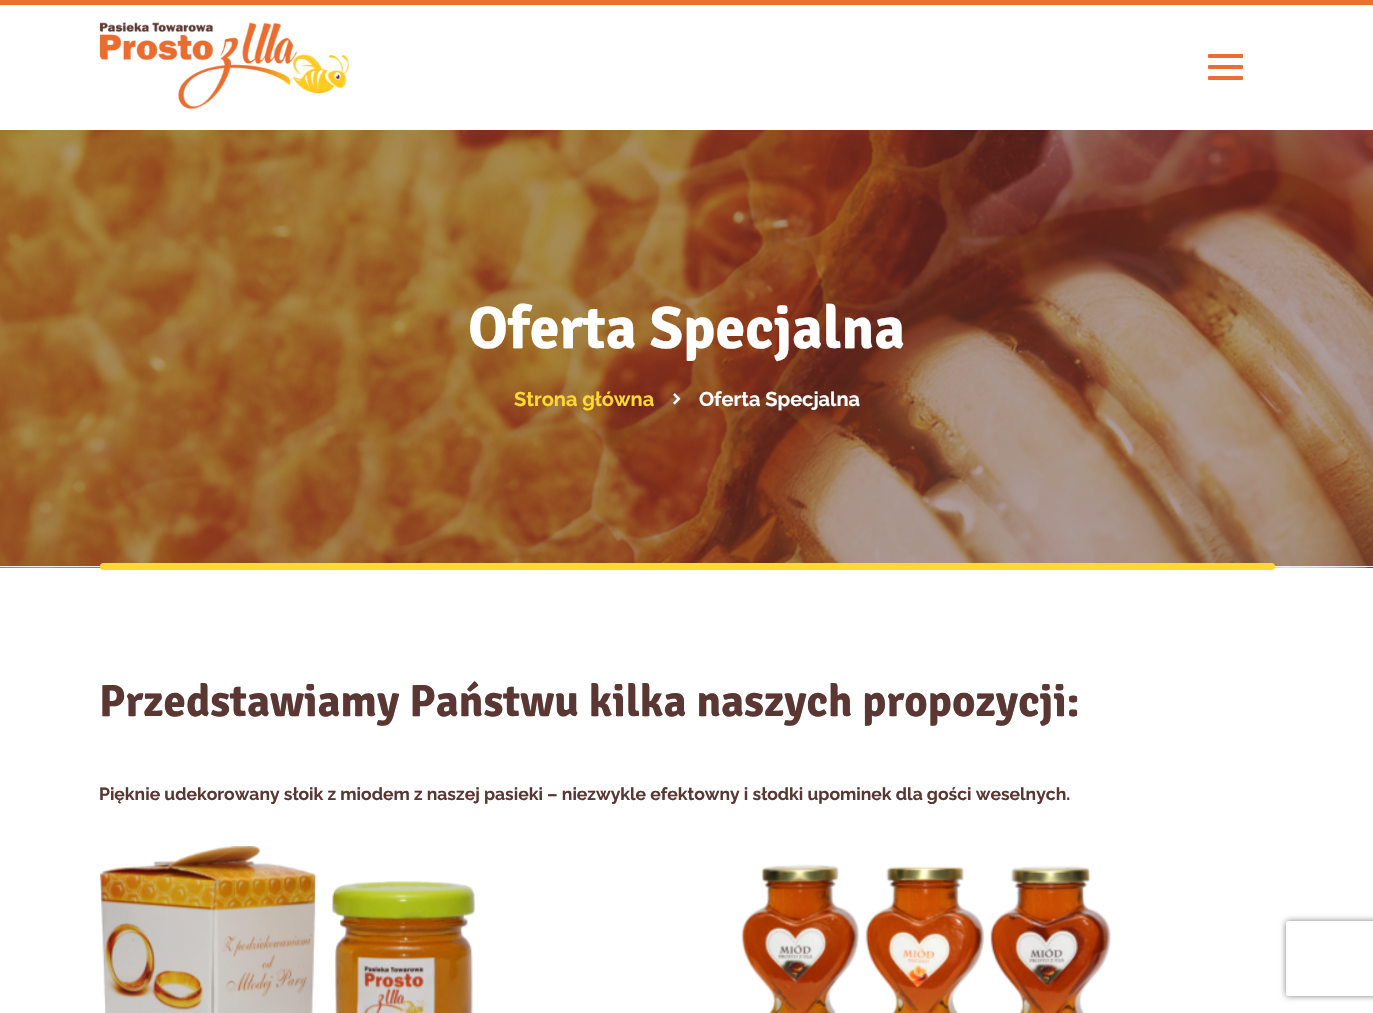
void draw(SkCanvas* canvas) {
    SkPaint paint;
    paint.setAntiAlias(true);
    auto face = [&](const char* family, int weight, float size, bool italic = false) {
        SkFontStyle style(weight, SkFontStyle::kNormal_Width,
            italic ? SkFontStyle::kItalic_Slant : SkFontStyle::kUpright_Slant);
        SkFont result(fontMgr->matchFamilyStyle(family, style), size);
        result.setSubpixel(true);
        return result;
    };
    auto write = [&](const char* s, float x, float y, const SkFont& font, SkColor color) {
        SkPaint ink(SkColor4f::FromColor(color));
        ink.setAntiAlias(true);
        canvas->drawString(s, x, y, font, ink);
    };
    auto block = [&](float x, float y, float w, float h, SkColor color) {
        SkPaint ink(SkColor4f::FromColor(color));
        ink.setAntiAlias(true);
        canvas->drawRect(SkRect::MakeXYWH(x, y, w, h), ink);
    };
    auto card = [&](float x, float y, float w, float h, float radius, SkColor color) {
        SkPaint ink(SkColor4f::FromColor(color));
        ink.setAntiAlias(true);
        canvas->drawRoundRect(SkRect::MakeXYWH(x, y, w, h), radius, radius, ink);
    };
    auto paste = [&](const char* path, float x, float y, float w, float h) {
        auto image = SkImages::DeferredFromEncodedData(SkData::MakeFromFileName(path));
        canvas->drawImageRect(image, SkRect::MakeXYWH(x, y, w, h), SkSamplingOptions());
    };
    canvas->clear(SK_ColorWHITE);
    block(0, 0, 1373, 5, SkColorSetRGB(235, 109, 47));
    paste("pic1.png", 99, 22, 250, 87);
    card(1208, 54, 35, 4, 1, SkColorSetRGB(235, 109, 47));
    card(1208, 65, 35, 4, 1, SkColorSetRGB(235, 109, 47));
    card(1208, 76, 35, 4, 1, SkColorSetRGB(235, 109, 47));
    paste("pic2.png", 0, 130, 1373, 438);
    block(0, 566, 1373, 1, SkColorSetRGB(238, 238, 238));
    auto kFont1 = face("Signika", 300, 60);
    write("Oferta Specjalna", 468, 348, kFont1, SK_ColorWHITE);
    auto kFont2 = face("Raleway", 700, 20);
    write("Strona główna", 514, 406, kFont2, SkColorSetRGB(255, 216, 50));
    paste("pic3.png", 673, 393, 8, 12);
    write("Oferta Specjalna", 699, 406, kFont2, SK_ColorWHITE);
    card(100, 563, 1175, 7, 3.5f, SkColorSetRGB(255, 216, 50));
    auto kFont3 = face("Signika", 300, 45);
    write("Przedstawiamy Państwu kilka naszych propozycji:", 99, 716, kFont3, SkColorSetRGB(90, 55, 51));
    auto kFont4 = face("Raleway", 700, 17.5f);
    write("Pięknie udekorowany słoik z miodem z naszej pasieki – niezwykle efektowny i słodki upominek dla gości weselnych.", 99, 800, kFont4, SkColorSetRGB(90, 55, 51));
    paste("pic4.png", 100, 846, 375, 167);
    paste("pic5.png", 741, 864, 370, 149);
    canvas->save();
    canvas->clipPath(SkPathBuilder(SkPathFillType::kEvenOdd).moveTo(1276, 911).lineTo(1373, 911).lineTo(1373, 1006).lineTo(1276, 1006).close().moveTo(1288.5f, 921).lineTo(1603.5f, 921).cubicTo(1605, 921, 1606, 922, 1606, 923.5f).lineTo(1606, 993.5f).cubicTo(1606, 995, 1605, 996, 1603.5f, 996).lineTo(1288.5f, 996).cubicTo(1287, 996, 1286, 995, 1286, 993.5f).lineTo(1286, 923.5f).cubicTo(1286, 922, 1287, 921, 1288.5f, 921).close().detach(), true);
    paint.setColor(SkColorSetRGB(128, 128, 128));
    paint.setMaskFilter(SkMaskFilter::MakeBlur(kNormal_SkBlurStyle, 3));
    canvas->drawRoundRect(SkRect::MakeXYWH(1286, 921, 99, 75), 2.5f, 2.5f, paint);
    paint.setMaskFilter(nullptr);
    canvas->restore();
}
